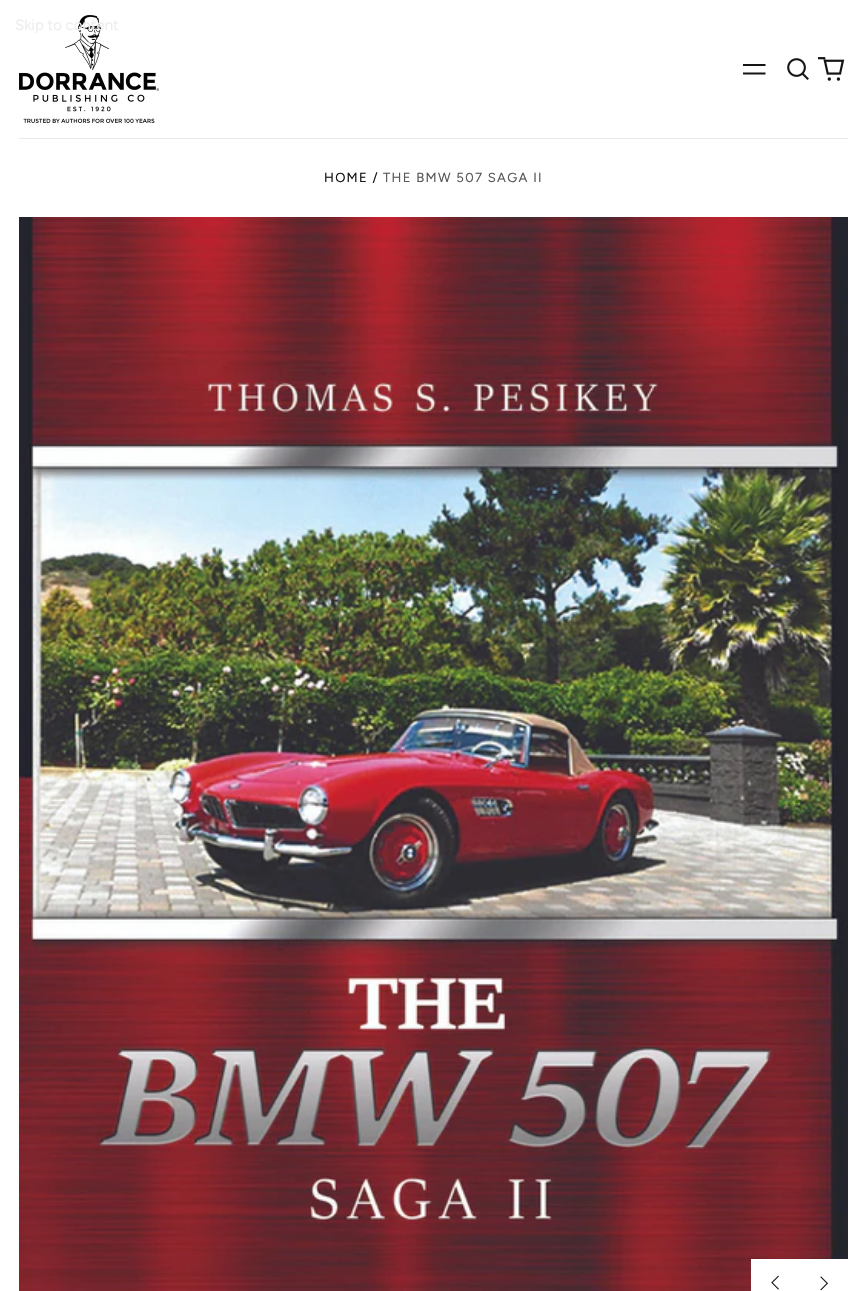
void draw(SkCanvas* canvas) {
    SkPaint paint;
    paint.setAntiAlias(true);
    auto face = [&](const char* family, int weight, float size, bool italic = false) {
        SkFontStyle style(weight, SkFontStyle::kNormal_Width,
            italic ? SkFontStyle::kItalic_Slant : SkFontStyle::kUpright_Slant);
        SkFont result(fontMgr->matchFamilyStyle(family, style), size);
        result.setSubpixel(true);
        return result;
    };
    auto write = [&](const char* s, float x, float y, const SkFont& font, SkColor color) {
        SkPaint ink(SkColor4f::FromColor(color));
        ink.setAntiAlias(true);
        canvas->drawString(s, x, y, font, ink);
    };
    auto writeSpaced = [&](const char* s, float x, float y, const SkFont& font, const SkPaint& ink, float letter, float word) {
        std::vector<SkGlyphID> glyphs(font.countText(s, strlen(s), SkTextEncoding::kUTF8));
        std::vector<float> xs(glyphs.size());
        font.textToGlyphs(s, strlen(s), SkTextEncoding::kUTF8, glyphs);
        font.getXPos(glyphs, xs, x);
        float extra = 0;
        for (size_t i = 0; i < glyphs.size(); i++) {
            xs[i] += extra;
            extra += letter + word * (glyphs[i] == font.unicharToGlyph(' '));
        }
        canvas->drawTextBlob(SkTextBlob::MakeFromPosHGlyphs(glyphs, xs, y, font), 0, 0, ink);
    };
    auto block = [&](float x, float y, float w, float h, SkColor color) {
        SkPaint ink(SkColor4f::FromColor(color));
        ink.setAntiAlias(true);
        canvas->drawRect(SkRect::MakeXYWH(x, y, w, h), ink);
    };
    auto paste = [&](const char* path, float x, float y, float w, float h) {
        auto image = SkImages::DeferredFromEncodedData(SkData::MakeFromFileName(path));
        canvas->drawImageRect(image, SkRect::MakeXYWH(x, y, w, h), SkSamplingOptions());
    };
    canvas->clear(SK_ColorWHITE);
    block(19, 138, 829, 1, SkColorSetRGB(235, 235, 235));
    paste("pic1.png", 19, 15, 140, 108);
    paint.setColor(SkColorSetRGB(22, 20, 20));
    canvas->drawPath(SkPathBuilder(SkPathFillType::kEvenOdd).moveTo(765.5f, 72.5f).lineTo(765.5f, 74.5f).lineTo(743, 74.5f).lineTo(743, 72.5f).close().moveTo(765.5f, 64).lineTo(765.5f, 66).lineTo(743, 66).lineTo(743, 64).close().detach(), paint);
    paste("pic2.png", 787, 58, 22, 22);
    paste("pic3.png", 818, 57, 27, 24);
    auto kFont1 = face("Figtree", 400, 15);
    write("Skip to content", 15, 30, kFont1, SkColorSetRGB(238, 238, 238));
    auto kFont2 = face("Figtree", 400, 13.1f);
    writeSpaced("HOME /", 324, 182, kFont2, paint, 1.3f, 0);
    paint.setColor(SkColorSetRGB(87, 88, 91));
    writeSpaced("THE BMW 507 SAGA II", 383, 182, kFont2, paint, 1.3f, 0);
    paste("pic4.png", 19, 217, 829, 1074);
    block(751, 1259, 97, 32, SK_ColorWHITE);
    paste("pic5.png", 771, 1275, 8, 15);
    paste("pic6.png", 820, 1276, 8, 15);
}
